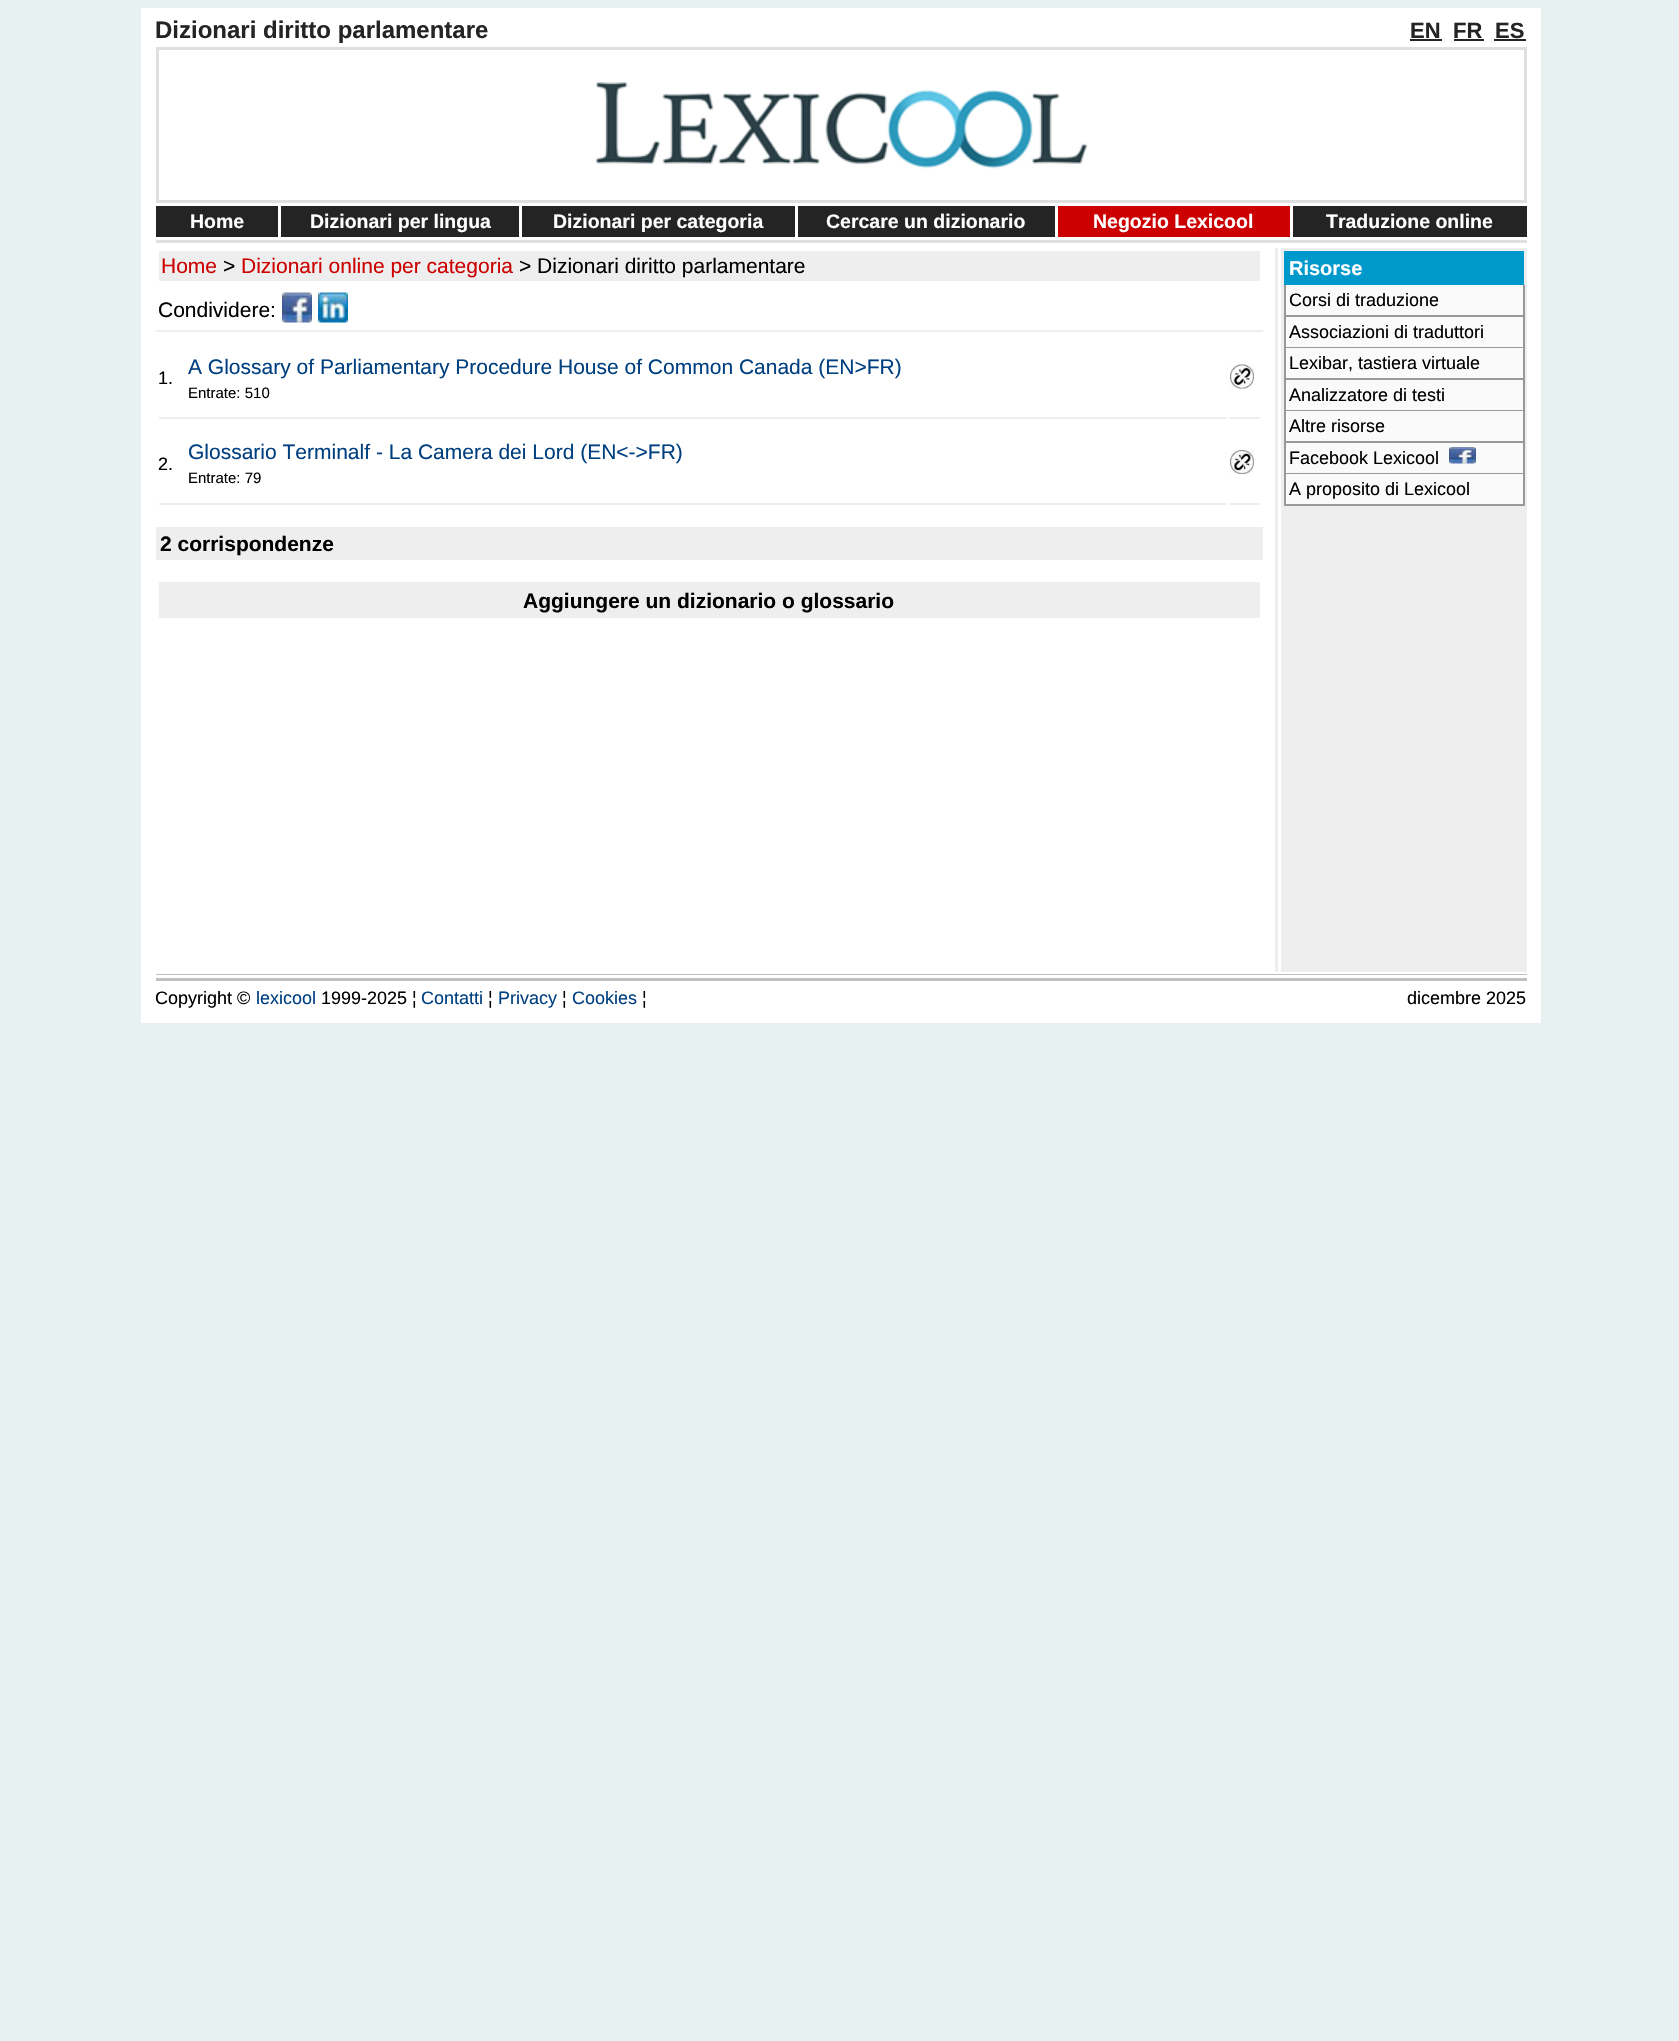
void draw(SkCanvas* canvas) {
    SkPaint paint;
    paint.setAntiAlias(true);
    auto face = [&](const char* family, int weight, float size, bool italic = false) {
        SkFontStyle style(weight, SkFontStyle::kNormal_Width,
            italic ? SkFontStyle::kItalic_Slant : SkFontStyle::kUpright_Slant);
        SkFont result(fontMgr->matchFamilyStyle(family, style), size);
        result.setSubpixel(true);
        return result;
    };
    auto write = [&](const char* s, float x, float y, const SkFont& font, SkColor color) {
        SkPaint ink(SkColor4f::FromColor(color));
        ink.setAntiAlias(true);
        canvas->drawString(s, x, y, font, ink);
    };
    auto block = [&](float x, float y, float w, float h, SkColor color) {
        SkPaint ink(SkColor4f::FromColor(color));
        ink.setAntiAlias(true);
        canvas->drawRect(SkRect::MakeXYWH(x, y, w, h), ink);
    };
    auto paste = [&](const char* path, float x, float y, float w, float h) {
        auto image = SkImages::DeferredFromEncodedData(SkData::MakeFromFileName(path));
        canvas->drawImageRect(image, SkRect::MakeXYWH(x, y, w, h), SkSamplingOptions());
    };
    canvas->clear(SkColorSetRGB(231, 241, 241));
    block(141, 8, 1400, 1015, SK_ColorWHITE);
    auto kFont1 = face("Liberation Sans", 700, 24);
    write("Dizionari diritto parlamentare", 155, 38, kFont1, SkColorSetRGB(36, 36, 36));
    auto kFont2 = face("Liberation Sans", 700, 22);
    write("EN", 1410, 38, kFont2, SkColorSetRGB(36, 36, 36));
    block(1410, 39, 32, 2, SkColorSetRGB(36, 36, 36));
    write("FR", 1453, 38, kFont2, SkColorSetRGB(36, 36, 36));
    block(1454, 39, 30, 2, SkColorSetRGB(36, 36, 36));
    write("ES", 1495, 38, kFont2, SkColorSetRGB(36, 36, 36));
    block(1494, 39, 32, 2, SkColorSetRGB(36, 36, 36));
    block(156, 47, 1371, 3, SkColorSetRGB(223, 223, 223));
    block(1524, 47, 3, 156, SkColorSetRGB(223, 223, 223));
    block(156, 200, 1371, 3, SkColorSetRGB(223, 223, 223));
    block(156, 47, 3, 156, SkColorSetRGB(223, 223, 223));
    paste("pic1.png", 595, 82, 493, 87);
    block(156, 206, 122, 31, SkColorSetRGB(36, 36, 36));
    auto kFont3 = face("Liberation Sans", 700, 19.5f);
    write("Home", 190, 228, kFont3, SK_ColorWHITE);
    block(281, 206, 238, 31, SkColorSetRGB(36, 36, 36));
    write("Dizionari per lingua", 310, 228, kFont3, SK_ColorWHITE);
    block(522, 206, 273, 31, SkColorSetRGB(36, 36, 36));
    write("Dizionari per categoria", 553, 228, kFont3, SK_ColorWHITE);
    block(798, 206, 257, 31, SkColorSetRGB(36, 36, 36));
    write("Cercare un dizionario", 826, 228, kFont3, SK_ColorWHITE);
    block(1058, 206, 232, 31, SkColorSetRGB(204, 0, 0));
    write("Negozio Lexicool", 1093, 228, kFont3, SK_ColorWHITE);
    block(1293, 206, 234, 31, SkColorSetRGB(36, 36, 36));
    write("Traduzione online", 1326, 228, kFont3, SK_ColorWHITE);
    block(156, 240, 1371, 3, SkColorSetRGB(223, 223, 223));
    block(159, 251, 1101, 30, SkColorSetRGB(238, 238, 238));
    auto kFont4 = face("Liberation Sans", 400, 21);
    write("Home", 161, 273, kFont4, SkColorSetRGB(204, 0, 0));
    write(">", 223, 273, kFont4, SK_ColorBLACK);
    write("Dizionari online per categoria", 241, 273, kFont4, SkColorSetRGB(204, 0, 0));
    write("> Dizionari diritto parlamentare", 519, 273, kFont4, SK_ColorBLACK);
    write("Condividere:", 158, 317, kFont4, SK_ColorBLACK);
    paste("pic2.png", 282, 292, 30, 31);
    paste("pic3.png", 318, 292, 30, 31);
    block(156, 330, 1107, 2, SkColorSetRGB(238, 238, 238));
    auto kFont5 = face("Liberation Sans", 400, 18);
    write("1.", 158, 384, kFont5, SK_ColorBLACK);
    write("A Glossary of Parliamentary Procedure House of Common Canada (EN>FR)", 188, 374, kFont4, SkColorSetRGB(0, 64, 128));
    auto kFont6 = face("Liberation Sans", 400, 15);
    write("Entrate: 510", 188, 398, kFont6, SK_ColorBLACK);
    paste("pic4.png", 1230, 364, 24, 25);
    block(159, 417, 1068, 2, SkColorSetRGB(238, 238, 238));
    block(1230, 417, 30, 2, SkColorSetRGB(238, 238, 238));
    write("2.", 158, 470, kFont5, SK_ColorBLACK);
    write("Glossario Terminalf - La Camera dei Lord (EN<->FR)", 188, 459, kFont4, SkColorSetRGB(0, 64, 128));
    write("Entrate: 79", 188, 483, kFont6, SK_ColorBLACK);
    paste("pic5.png", 1230, 450, 24, 24);
    block(159, 503, 1068, 2, SkColorSetRGB(238, 238, 238));
    block(1230, 503, 30, 2, SkColorSetRGB(238, 238, 238));
    block(156, 527, 1107, 33, SkColorSetRGB(238, 238, 238));
    auto kFont7 = face("Liberation Sans", 700, 21);
    write("2 corrispondenze", 160, 551, kFont7, SK_ColorBLACK);
    block(159, 582, 1101, 36, SkColorSetRGB(238, 238, 238));
    write("Aggiungere un dizionario o glossario", 523, 608, kFont7, SK_ColorBLACK);
    block(1275, 248, 3, 724, SkColorSetRGB(238, 238, 238));
    block(1281, 248, 246, 724, SkColorSetRGB(238, 238, 238));
    block(1284, 251, 240, 34, SkColorSetRGB(0, 153, 204));
    auto kFont8 = face("Liberation Sans", 700, 20);
    write("Risorse", 1289, 275, kFont8, SK_ColorWHITE);
    block(1286, 285, 237, 30, SkColorSetRGB(250, 250, 250));
    block(1523, 285, 2, 221, SkColorSetRGB(153, 153, 153));
    block(1284, 315, 240, 2, SkColorSetRGB(153, 153, 153));
    block(1284, 285, 2, 32, SkColorSetRGB(153, 153, 153));
    write("Corsi di traduzione", 1289, 306, kFont5, SK_ColorBLACK);
    block(1286, 317, 237, 30, SkColorSetRGB(250, 250, 250));
    block(1284, 347, 240, 1, SkColorSetRGB(153, 153, 153));
    block(1284, 317, 2, 31, SkColorSetRGB(153, 153, 153));
    write("Associazioni di traduttori", 1289, 338, kFont5, SK_ColorBLACK);
    block(1286, 348, 237, 30, SkColorSetRGB(250, 250, 250));
    block(1284, 378, 240, 2, SkColorSetRGB(153, 153, 153));
    block(1284, 348, 2, 32, SkColorSetRGB(153, 153, 153));
    write("Lexibar, tastiera virtuale", 1289, 369, kFont5, SK_ColorBLACK);
    block(1286, 380, 237, 30, SkColorSetRGB(250, 250, 250));
    block(1284, 410, 240, 1, SkColorSetRGB(153, 153, 153));
    block(1284, 380, 2, 31, SkColorSetRGB(153, 153, 153));
    write("Analizzatore di testi", 1289, 401, kFont5, SK_ColorBLACK);
    block(1286, 411, 237, 30, SkColorSetRGB(250, 250, 250));
    block(1284, 441, 240, 2, SkColorSetRGB(153, 153, 153));
    block(1284, 411, 2, 32, SkColorSetRGB(153, 153, 153));
    write("Altre risorse", 1289, 432, kFont5, SK_ColorBLACK);
    block(1286, 443, 237, 30, SkColorSetRGB(250, 250, 250));
    block(1284, 473, 240, 1, SkColorSetRGB(153, 153, 153));
    block(1284, 443, 2, 31, SkColorSetRGB(153, 153, 153));
    write("Facebook Lexicool", 1289, 464, kFont5, SK_ColorBLACK);
    paste("pic6.png", 1449, 447, 27, 17);
    block(1286, 474, 237, 30, SkColorSetRGB(250, 250, 250));
    block(1284, 504, 240, 2, SkColorSetRGB(153, 153, 153));
    block(1284, 474, 2, 32, SkColorSetRGB(153, 153, 153));
    write("A proposito di Lexicool", 1289, 495, kFont5, SK_ColorBLACK);
    block(156, 974, 1371, 1, SkColorSetRGB(192, 192, 192));
    block(156, 978, 1371, 3, SkColorSetRGB(192, 192, 192));
    write("Copyright ©", 155, 1004, kFont5, SK_ColorBLACK);
    write("lexicool", 256, 1004, kFont5, SkColorSetRGB(0, 64, 128));
    write("1999-2025 ¦", 321, 1004, kFont5, SK_ColorBLACK);
    write("Contatti", 421, 1004, kFont5, SkColorSetRGB(0, 64, 128));
    write("¦", 488, 1004, kFont5, SK_ColorBLACK);
    write("Privacy", 498, 1004, kFont5, SkColorSetRGB(0, 64, 128));
    write("¦", 562, 1004, kFont5, SK_ColorBLACK);
    write("Cookies", 572, 1004, kFont5, SkColorSetRGB(0, 64, 128));
    write("¦", 642, 1004, kFont5, SK_ColorBLACK);
    write("dicembre 2025", 1407, 1004, kFont5, SK_ColorBLACK);
}
